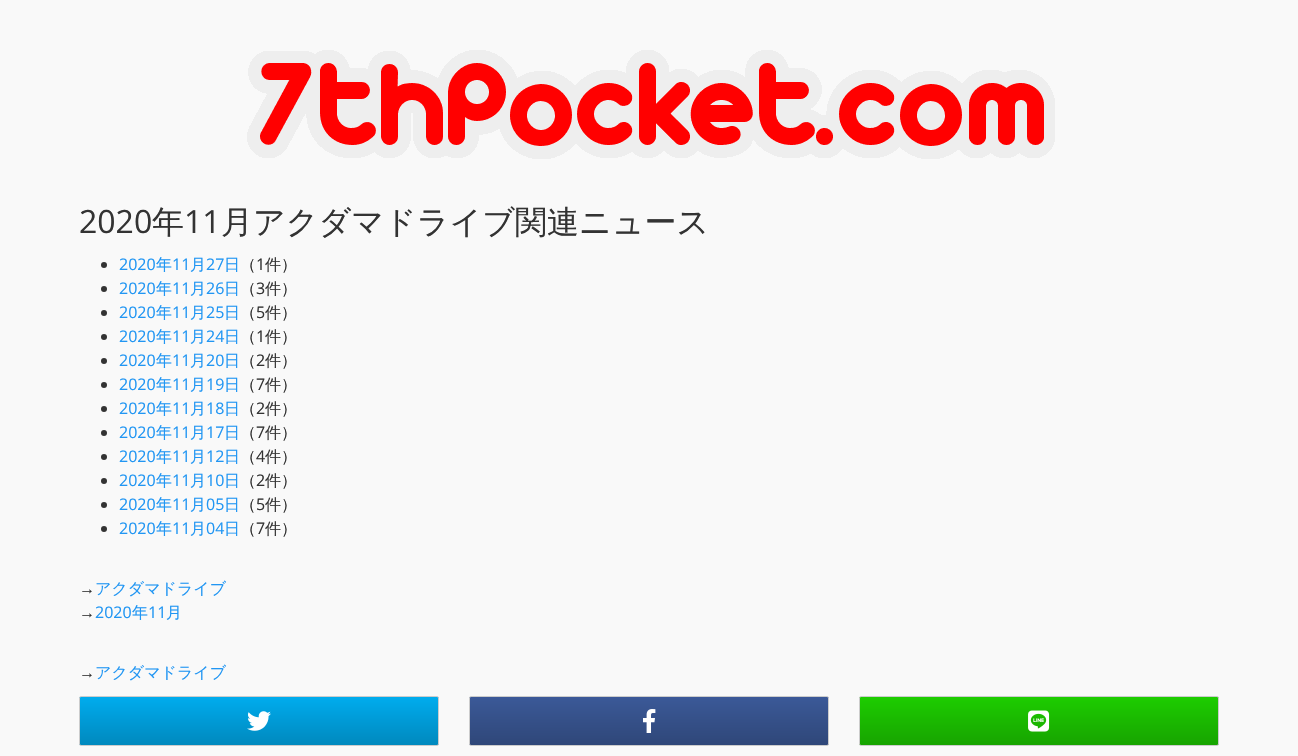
void draw(SkCanvas* canvas) {
    SkPaint paint;
    paint.setAntiAlias(true);
    auto face = [&](const char* family, int weight, float size, bool italic = false) {
        SkFontStyle style(weight, SkFontStyle::kNormal_Width,
            italic ? SkFontStyle::kItalic_Slant : SkFontStyle::kUpright_Slant);
        SkFont result(fontMgr->matchFamilyStyle(family, style), size);
        result.setSubpixel(true);
        return result;
    };
    auto write = [&](const char* s, float x, float y, const SkFont& font, SkColor color) {
        SkPaint ink(SkColor4f::FromColor(color));
        ink.setAntiAlias(true);
        canvas->drawString(s, x, y, font, ink);
    };
    auto paste = [&](const char* path, float x, float y, float w, float h) {
        auto image = SkImages::DeferredFromEncodedData(SkData::MakeFromFileName(path));
        canvas->drawImageRect(image, SkRect::MakeXYWH(x, y, w, h), SkSamplingOptions());
    };
    canvas->clear(SkColorSetRGB(249, 249, 249));
    paste("pic1.png", 247, 50, 808, 109);
    auto kFont1 = face("Open Sans", 400, 32);
    write("2020", 79, 233, kFont1, SkColorSetRGB(51, 51, 51));
    auto kFont2 = face("WenQuanYi Zen Hei", 500, 32);
    write("年", 152, 233, kFont2, SkColorSetRGB(51, 51, 51));
    write("11", 184, 233, kFont1, SkColorSetRGB(51, 51, 51));
    write("月アクダマドライブ関連ニュース", 221, 233, kFont2, SkColorSetRGB(51, 51, 51));
    paint.setColor(SkColorSetRGB(51, 51, 51));
    canvas->drawCircle(104, 265, 3, paint);
    auto kFont3 = face("Open Sans", 400, 16);
    write("2020", 119, 270, kFont3, SkColorSetRGB(33, 150, 243));
    auto kFont4 = face("WenQuanYi Zen Hei", 500, 16);
    write("年", 156, 270, kFont4, SkColorSetRGB(33, 150, 243));
    write("11", 172, 270, kFont3, SkColorSetRGB(33, 150, 243));
    write("月", 190, 270, kFont4, SkColorSetRGB(33, 150, 243));
    write("27", 206, 270, kFont3, SkColorSetRGB(33, 150, 243));
    write("日", 224, 270, kFont4, SkColorSetRGB(33, 150, 243));
    write("（", 240, 270, kFont4, SkColorSetRGB(51, 51, 51));
    write("1", 256, 270, kFont3, SkColorSetRGB(51, 51, 51));
    write("件）", 265, 270, kFont4, SkColorSetRGB(51, 51, 51));
    canvas->drawCircle(104, 289, 3, paint);
    write("2020", 119, 294, kFont3, SkColorSetRGB(33, 150, 243));
    write("年", 156, 294, kFont4, SkColorSetRGB(33, 150, 243));
    write("11", 172, 294, kFont3, SkColorSetRGB(33, 150, 243));
    write("月", 190, 294, kFont4, SkColorSetRGB(33, 150, 243));
    write("26", 206, 294, kFont3, SkColorSetRGB(33, 150, 243));
    write("日", 224, 294, kFont4, SkColorSetRGB(33, 150, 243));
    write("（", 240, 294, kFont4, SkColorSetRGB(51, 51, 51));
    write("3", 256, 294, kFont3, SkColorSetRGB(51, 51, 51));
    write("件）", 265, 294, kFont4, SkColorSetRGB(51, 51, 51));
    canvas->drawCircle(104, 313, 3, paint);
    write("2020", 119, 318, kFont3, SkColorSetRGB(33, 150, 243));
    write("年", 156, 318, kFont4, SkColorSetRGB(33, 150, 243));
    write("11", 172, 318, kFont3, SkColorSetRGB(33, 150, 243));
    write("月", 190, 318, kFont4, SkColorSetRGB(33, 150, 243));
    write("25", 206, 318, kFont3, SkColorSetRGB(33, 150, 243));
    write("日", 224, 318, kFont4, SkColorSetRGB(33, 150, 243));
    write("（", 240, 318, kFont4, SkColorSetRGB(51, 51, 51));
    write("5", 256, 318, kFont3, SkColorSetRGB(51, 51, 51));
    write("件）", 265, 318, kFont4, SkColorSetRGB(51, 51, 51));
    canvas->drawCircle(104, 337, 3, paint);
    write("2020", 119, 342, kFont3, SkColorSetRGB(33, 150, 243));
    write("年", 156, 342, kFont4, SkColorSetRGB(33, 150, 243));
    write("11", 172, 342, kFont3, SkColorSetRGB(33, 150, 243));
    write("月", 190, 342, kFont4, SkColorSetRGB(33, 150, 243));
    write("24", 206, 342, kFont3, SkColorSetRGB(33, 150, 243));
    write("日", 224, 342, kFont4, SkColorSetRGB(33, 150, 243));
    write("（", 240, 342, kFont4, SkColorSetRGB(51, 51, 51));
    write("1", 256, 342, kFont3, SkColorSetRGB(51, 51, 51));
    write("件）", 265, 342, kFont4, SkColorSetRGB(51, 51, 51));
    canvas->drawCircle(104, 361, 3, paint);
    write("2020", 119, 366, kFont3, SkColorSetRGB(33, 150, 243));
    write("年", 156, 366, kFont4, SkColorSetRGB(33, 150, 243));
    write("11", 172, 366, kFont3, SkColorSetRGB(33, 150, 243));
    write("月", 190, 366, kFont4, SkColorSetRGB(33, 150, 243));
    write("20", 206, 366, kFont3, SkColorSetRGB(33, 150, 243));
    write("日", 224, 366, kFont4, SkColorSetRGB(33, 150, 243));
    write("（", 240, 366, kFont4, SkColorSetRGB(51, 51, 51));
    write("2", 256, 366, kFont3, SkColorSetRGB(51, 51, 51));
    write("件）", 265, 366, kFont4, SkColorSetRGB(51, 51, 51));
    canvas->drawCircle(104, 385, 3, paint);
    write("2020", 119, 390, kFont3, SkColorSetRGB(33, 150, 243));
    write("年", 156, 390, kFont4, SkColorSetRGB(33, 150, 243));
    write("11", 172, 390, kFont3, SkColorSetRGB(33, 150, 243));
    write("月", 190, 390, kFont4, SkColorSetRGB(33, 150, 243));
    write("19", 206, 390, kFont3, SkColorSetRGB(33, 150, 243));
    write("日", 224, 390, kFont4, SkColorSetRGB(33, 150, 243));
    write("（", 240, 390, kFont4, SkColorSetRGB(51, 51, 51));
    write("7", 256, 390, kFont3, SkColorSetRGB(51, 51, 51));
    write("件）", 265, 390, kFont4, SkColorSetRGB(51, 51, 51));
    canvas->drawCircle(104, 409, 3, paint);
    write("2020", 119, 414, kFont3, SkColorSetRGB(33, 150, 243));
    write("年", 156, 414, kFont4, SkColorSetRGB(33, 150, 243));
    write("11", 172, 414, kFont3, SkColorSetRGB(33, 150, 243));
    write("月", 190, 414, kFont4, SkColorSetRGB(33, 150, 243));
    write("18", 206, 414, kFont3, SkColorSetRGB(33, 150, 243));
    write("日", 224, 414, kFont4, SkColorSetRGB(33, 150, 243));
    write("（", 240, 414, kFont4, SkColorSetRGB(51, 51, 51));
    write("2", 256, 414, kFont3, SkColorSetRGB(51, 51, 51));
    write("件）", 265, 414, kFont4, SkColorSetRGB(51, 51, 51));
    canvas->drawCircle(104, 433, 3, paint);
    write("2020", 119, 438, kFont3, SkColorSetRGB(33, 150, 243));
    write("年", 156, 438, kFont4, SkColorSetRGB(33, 150, 243));
    write("11", 172, 438, kFont3, SkColorSetRGB(33, 150, 243));
    write("月", 190, 438, kFont4, SkColorSetRGB(33, 150, 243));
    write("17", 206, 438, kFont3, SkColorSetRGB(33, 150, 243));
    write("日", 224, 438, kFont4, SkColorSetRGB(33, 150, 243));
    write("（", 240, 438, kFont4, SkColorSetRGB(51, 51, 51));
    write("7", 256, 438, kFont3, SkColorSetRGB(51, 51, 51));
    write("件）", 265, 438, kFont4, SkColorSetRGB(51, 51, 51));
    canvas->drawCircle(104, 457, 3, paint);
    write("2020", 119, 462, kFont3, SkColorSetRGB(33, 150, 243));
    write("年", 156, 462, kFont4, SkColorSetRGB(33, 150, 243));
    write("11", 172, 462, kFont3, SkColorSetRGB(33, 150, 243));
    write("月", 190, 462, kFont4, SkColorSetRGB(33, 150, 243));
    write("12", 206, 462, kFont3, SkColorSetRGB(33, 150, 243));
    write("日", 224, 462, kFont4, SkColorSetRGB(33, 150, 243));
    write("（", 240, 462, kFont4, SkColorSetRGB(51, 51, 51));
    write("4", 256, 462, kFont3, SkColorSetRGB(51, 51, 51));
    write("件）", 265, 462, kFont4, SkColorSetRGB(51, 51, 51));
    canvas->drawCircle(104, 481, 3, paint);
    write("2020", 119, 486, kFont3, SkColorSetRGB(33, 150, 243));
    write("年", 156, 486, kFont4, SkColorSetRGB(33, 150, 243));
    write("11", 172, 486, kFont3, SkColorSetRGB(33, 150, 243));
    write("月", 190, 486, kFont4, SkColorSetRGB(33, 150, 243));
    write("10", 206, 486, kFont3, SkColorSetRGB(33, 150, 243));
    write("日", 224, 486, kFont4, SkColorSetRGB(33, 150, 243));
    write("（", 240, 486, kFont4, SkColorSetRGB(51, 51, 51));
    write("2", 256, 486, kFont3, SkColorSetRGB(51, 51, 51));
    write("件）", 265, 486, kFont4, SkColorSetRGB(51, 51, 51));
    canvas->drawCircle(104, 505, 3, paint);
    write("2020", 119, 510, kFont3, SkColorSetRGB(33, 150, 243));
    write("年", 156, 510, kFont4, SkColorSetRGB(33, 150, 243));
    write("11", 172, 510, kFont3, SkColorSetRGB(33, 150, 243));
    write("月", 190, 510, kFont4, SkColorSetRGB(33, 150, 243));
    write("05", 206, 510, kFont3, SkColorSetRGB(33, 150, 243));
    write("日", 224, 510, kFont4, SkColorSetRGB(33, 150, 243));
    write("（", 240, 510, kFont4, SkColorSetRGB(51, 51, 51));
    write("5", 256, 510, kFont3, SkColorSetRGB(51, 51, 51));
    write("件）", 265, 510, kFont4, SkColorSetRGB(51, 51, 51));
    canvas->drawCircle(104, 529, 3, paint);
    write("2020", 119, 534, kFont3, SkColorSetRGB(33, 150, 243));
    write("年", 156, 534, kFont4, SkColorSetRGB(33, 150, 243));
    write("11", 172, 534, kFont3, SkColorSetRGB(33, 150, 243));
    write("月", 190, 534, kFont4, SkColorSetRGB(33, 150, 243));
    write("04", 206, 534, kFont3, SkColorSetRGB(33, 150, 243));
    write("日", 224, 534, kFont4, SkColorSetRGB(33, 150, 243));
    write("（", 240, 534, kFont4, SkColorSetRGB(51, 51, 51));
    write("7", 256, 534, kFont3, SkColorSetRGB(51, 51, 51));
    write("件）", 265, 534, kFont4, SkColorSetRGB(51, 51, 51));
    auto kFont5 = face("Liberation Sans", 400, 16);
    write("→", 79, 594, kFont5, SkColorSetRGB(51, 51, 51));
    write("アクダマドライブ", 95, 594, kFont4, SkColorSetRGB(33, 150, 243));
    write("→", 79, 618, kFont5, SkColorSetRGB(51, 51, 51));
    write("2020", 95, 618, kFont3, SkColorSetRGB(33, 150, 243));
    write("年", 132, 618, kFont4, SkColorSetRGB(33, 150, 243));
    write("11", 148, 618, kFont3, SkColorSetRGB(33, 150, 243));
    write("月", 166, 618, kFont4, SkColorSetRGB(33, 150, 243));
    write("→", 79, 678, kFont5, SkColorSetRGB(51, 51, 51));
    write("アクダマドライブ", 95, 678, kFont4, SkColorSetRGB(33, 150, 243));
    canvas->save();
    canvas->clipPath(SkPathBuilder().moveTo(81, 696).lineTo(437, 696).cubicTo(438, 696, 439, 697, 439, 698).lineTo(439, 744).cubicTo(439, 745, 438, 746, 437, 746).lineTo(81, 746).cubicTo(80, 746, 79, 745, 79, 744).lineTo(79, 698).cubicTo(79, 697, 80, 696, 81, 696).close().detach(), true);
    {
        const SkColor colors[] = {SkColorSetRGB(0, 172, 237), SkColorSetRGB(0, 154, 213), SkColorSetRGB(0, 137, 189)};
        const float stops[] = {0, 0.5f, 1};
        const SkPoint ends[] = {{259, 697}, {259, 745}};
        paint.setShader(SkGradientShader::MakeLinear(ends, colors, stops, 3, SkTileMode::kClamp));
        paint.setAlpha(255);
    }
    canvas->drawRect(SkRect::MakeXYWH(79, 697, 360, 48), paint);
    canvas->restore();
    paint.setStyle(SkPaint::kStroke_Style);
    paint.setStrokeWidth(1);
    paint.setShader(nullptr);
    paint.setColor(SkColorSetRGB(204, 204, 204));
    canvas->drawRoundRect(SkRect::MakeXYWH(79.5f, 696.5f, 359, 49), 1.5f, 1.5f, paint);
    paste("pic2.png", 247, 711, 24, 20);
    canvas->save();
    canvas->clipPath(SkPathBuilder().moveTo(471, 696).lineTo(827, 696).cubicTo(828, 696, 829, 697, 829, 698).lineTo(829, 744).cubicTo(829, 745, 828, 746, 827, 746).lineTo(471, 746).cubicTo(470, 746, 469, 745, 469, 744).lineTo(469, 698).cubicTo(469, 697, 470, 696, 471, 696).close().detach(), true);
    paint.setStyle(SkPaint::kFill_Style);
    {
        const SkColor colors[] = {SkColorSetRGB(59, 89, 152), SkColorSetRGB(53, 80, 136), SkColorSetRGB(47, 71, 121)};
        const float stops[] = {0, 0.5f, 1};
        const SkPoint ends[] = {{649, 697}, {649, 745}};
        paint.setShader(SkGradientShader::MakeLinear(ends, colors, stops, 3, SkTileMode::kClamp));
        paint.setAlpha(255);
    }
    canvas->drawRect(SkRect::MakeXYWH(469, 697, 360, 48), paint);
    canvas->restore();
    paint.setStyle(SkPaint::kStroke_Style);
    paint.setShader(nullptr);
    paint.setColor(SkColorSetRGB(204, 204, 204));
    canvas->drawRoundRect(SkRect::MakeXYWH(469.5f, 696.5f, 359, 49), 1.5f, 1.5f, paint);
    paste("pic3.png", 643, 709, 13, 24);
    canvas->save();
    canvas->clipPath(SkPathBuilder().moveTo(861, 696).lineTo(1217, 696).cubicTo(1218, 696, 1219, 697, 1219, 698).lineTo(1219, 744).cubicTo(1219, 745, 1218, 746, 1217, 746).lineTo(861, 746).cubicTo(860, 746, 859, 745, 859, 744).lineTo(859, 698).cubicTo(859, 697, 860, 696, 861, 696).close().detach(), true);
    paint.setStyle(SkPaint::kFill_Style);
    {
        const SkColor colors[] = {SkColorSetRGB(29, 205, 0), SkColorSetRGB(26, 184, 0), SkColorSetRGB(23, 164, 0)};
        const float stops[] = {0, 0.5f, 1};
        const SkPoint ends[] = {{1039, 697}, {1039, 745}};
        paint.setShader(SkGradientShader::MakeLinear(ends, colors, stops, 3, SkTileMode::kClamp));
        paint.setAlpha(255);
    }
    canvas->drawRect(SkRect::MakeXYWH(859, 697, 360, 48), paint);
    canvas->restore();
    paint.setStyle(SkPaint::kStroke_Style);
    paint.setShader(nullptr);
    paint.setColor(SkColorSetRGB(204, 204, 204));
    canvas->drawRoundRect(SkRect::MakeXYWH(859.5f, 696.5f, 359, 49), 1.5f, 1.5f, paint);
    paste("pic4.png", 1028, 710, 22, 22);
}
